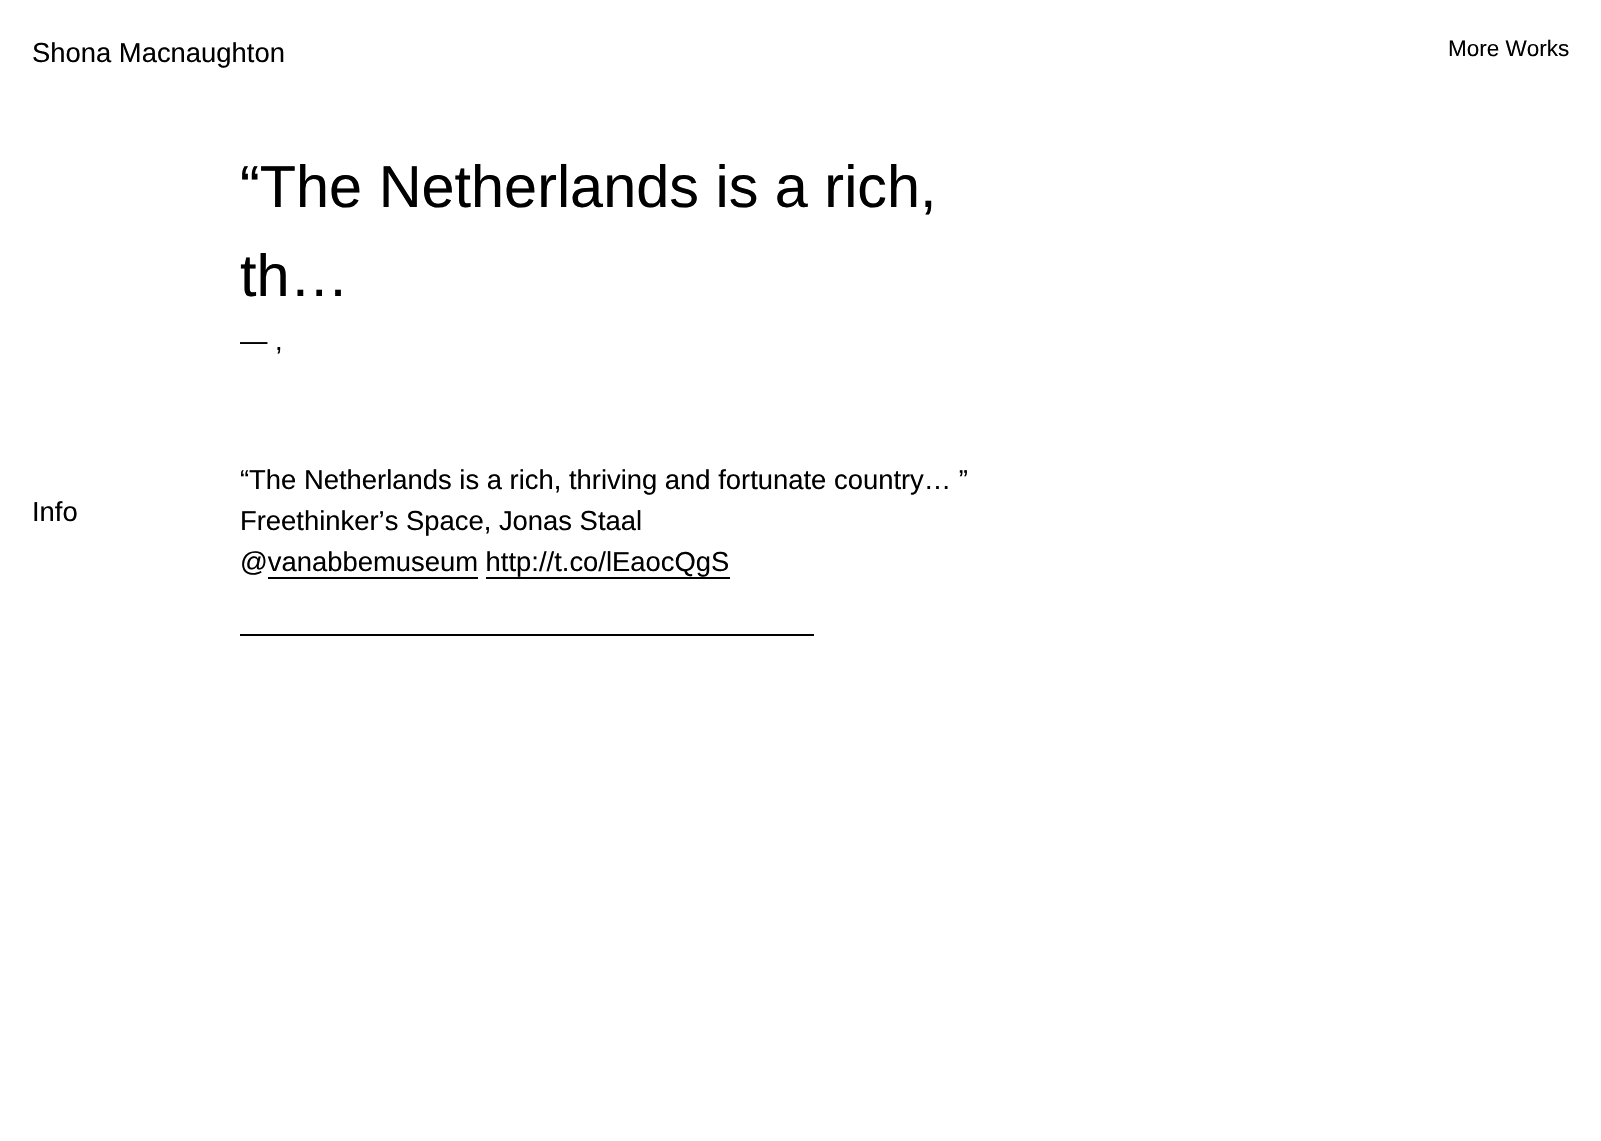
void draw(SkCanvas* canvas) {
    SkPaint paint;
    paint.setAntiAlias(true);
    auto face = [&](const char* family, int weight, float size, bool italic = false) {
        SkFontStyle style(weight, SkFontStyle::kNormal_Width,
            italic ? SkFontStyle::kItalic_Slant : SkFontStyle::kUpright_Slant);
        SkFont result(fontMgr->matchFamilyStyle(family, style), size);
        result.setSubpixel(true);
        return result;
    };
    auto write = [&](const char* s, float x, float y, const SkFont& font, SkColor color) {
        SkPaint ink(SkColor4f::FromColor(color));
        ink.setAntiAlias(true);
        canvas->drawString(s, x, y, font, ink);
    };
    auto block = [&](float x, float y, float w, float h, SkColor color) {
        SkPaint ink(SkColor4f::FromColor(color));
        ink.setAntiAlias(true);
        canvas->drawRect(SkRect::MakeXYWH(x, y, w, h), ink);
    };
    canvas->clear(SK_ColorWHITE);
    auto kFont1 = face("Liberation Sans", 400, 27.4f);
    write("Shona Macnaughton", 32, 62, kFont1, SK_ColorBLACK);
    auto kFont2 = face("Liberation Sans", 400, 59.4f);
    write("“The Netherlands is a rich,", 240, 207, kFont2, SK_ColorBLACK);
    write("th…", 240, 296, kFont2, SK_ColorBLACK);
    write("— ,", 240, 350, kFont1, SK_ColorBLACK);
    write("Info", 32, 521, kFont1, SK_ColorBLACK);
    write("“The Netherlands is a rich, thriving and fortunate country… ”", 240, 489, kFont1, SK_ColorBLACK);
    write("Freethinker’s Space, Jonas Staal", 240, 530, kFont1, SK_ColorBLACK);
    write("@vanabbemuseum http://t.co/lEaocQgS", 240, 571, kFont1, SK_ColorBLACK);
    block(268, 577, 210, 2, SK_ColorBLACK);
    block(486, 577, 244, 2, SK_ColorBLACK);
    block(240, 634, 574, 2, SK_ColorBLACK);
    auto kFont3 = face("Liberation Sans", 400, 22.5f);
    write("More Works", 1448, 56, kFont3, SK_ColorBLACK);
}
